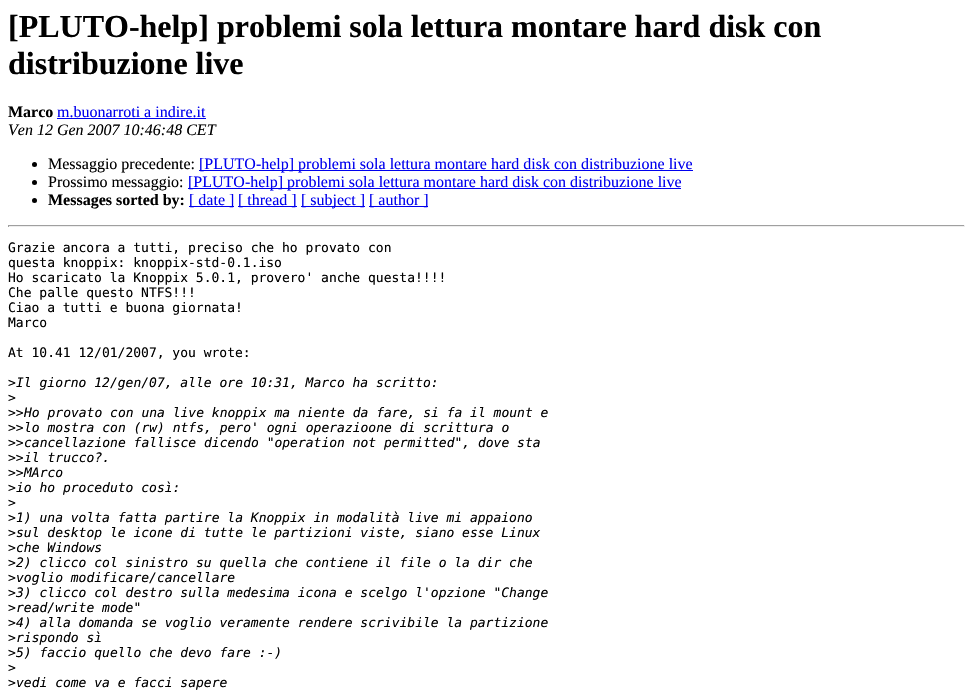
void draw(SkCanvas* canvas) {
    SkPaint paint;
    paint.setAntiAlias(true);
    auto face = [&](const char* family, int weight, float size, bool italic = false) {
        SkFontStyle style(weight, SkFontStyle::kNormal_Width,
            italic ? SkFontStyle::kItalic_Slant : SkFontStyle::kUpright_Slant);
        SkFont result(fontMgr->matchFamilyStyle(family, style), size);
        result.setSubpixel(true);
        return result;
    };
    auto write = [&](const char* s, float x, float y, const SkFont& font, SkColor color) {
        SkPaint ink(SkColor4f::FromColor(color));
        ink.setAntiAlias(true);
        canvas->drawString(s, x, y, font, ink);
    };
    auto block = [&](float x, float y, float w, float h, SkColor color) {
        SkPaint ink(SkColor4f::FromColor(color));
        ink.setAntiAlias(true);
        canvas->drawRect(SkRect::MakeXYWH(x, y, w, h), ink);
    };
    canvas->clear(SK_ColorWHITE);
    auto kFont1 = face("Liberation Serif", 700, 32);
    write("[PLUTO-help] problemi sola lettura montare hard disk con", 8, 37, kFont1, SK_ColorBLACK);
    write("distribuzione live", 8, 74, kFont1, SK_ColorBLACK);
    auto kFont2 = face("Liberation Serif", 700, 16);
    write("Marco", 8, 117, kFont2, SK_ColorBLACK);
    auto kFont3 = face("Liberation Serif", 400, 16);
    write("m.buonarroti a indire.it", 57, 117, kFont3, SkColorSetRGB(0, 0, 238));
    block(57, 118, 149, 1, SkColorSetRGB(0, 0, 238));
    auto kFont4 = face("Liberation Serif", 400, 16, true);
    write("Ven 12 Gen 2007 10:46:48 CET", 8, 135, kFont4, SK_ColorBLACK);
    paint.setColor(SK_ColorBLACK);
    canvas->drawCircle(34.5f, 164.5f, 2.5f, paint);
    write("Messaggio precedente:", 48, 169, kFont3, SK_ColorBLACK);
    block(199, 170, 494, 1, SkColorSetRGB(0, 0, 238));
    write("[PLUTO-help] problemi sola lettura montare hard disk con distribuzione live", 199, 169, kFont3, SkColorSetRGB(0, 0, 238));
    canvas->drawCircle(34.5f, 182.5f, 2.5f, paint);
    write("Prossimo messaggio:", 48, 187, kFont3, SK_ColorBLACK);
    block(188, 188, 493, 1, SkColorSetRGB(0, 0, 238));
    write("[PLUTO-help] problemi sola lettura montare hard disk con distribuzione live", 188, 187, kFont3, SkColorSetRGB(0, 0, 238));
    canvas->drawCircle(34.5f, 200.5f, 2.5f, paint);
    write("Messages sorted by:", 48, 205, kFont2, SK_ColorBLACK);
    block(189, 206, 45, 1, SkColorSetRGB(0, 0, 238));
    write("[ date ]", 189, 205, kFont3, SkColorSetRGB(0, 0, 238));
    block(238, 206, 59, 1, SkColorSetRGB(0, 0, 238));
    write("[ thread ]", 238, 205, kFont3, SkColorSetRGB(0, 0, 238));
    block(301, 206, 64, 1, SkColorSetRGB(0, 0, 238));
    write("[ subject ]", 301, 205, kFont3, SkColorSetRGB(0, 0, 238));
    block(369, 206, 59, 1, SkColorSetRGB(0, 0, 238));
    write("[ author ]", 369, 205, kFont3, SkColorSetRGB(0, 0, 238));
    block(8, 225, 957, 1, SkColorSetRGB(159, 159, 159));
    block(964, 225, 1, 2, SkColorSetRGB(238, 238, 238));
    block(8, 226, 957, 1, SkColorSetRGB(238, 238, 238));
    block(8, 225, 1, 2, SkColorSetRGB(159, 159, 159));
    auto kFont5 = face("DejaVu Sans Mono", 400, 13);
    write("Grazie ancora a tutti, preciso che ho provato con", 8, 252, kFont5, SK_ColorBLACK);
    write("questa knoppix: knoppix-std-0.1.iso", 8, 267, kFont5, SK_ColorBLACK);
    write("Ho scaricato la Knoppix 5.0.1, provero' anche questa!!!!", 8, 282, kFont5, SK_ColorBLACK);
    write("Che palle questo NTFS!!!", 8, 297, kFont5, SK_ColorBLACK);
    write("Ciao a tutti e buona giornata!", 8, 312, kFont5, SK_ColorBLACK);
    write("Marco", 8, 327, kFont5, SK_ColorBLACK);
    write("At 10.41 12/01/2007, you wrote:", 8, 357, kFont5, SK_ColorBLACK);
    write(">", 8, 387, kFont5, SK_ColorBLACK);
    auto kFont6 = face("DejaVu Sans Mono", 400, 13, true);
    write("Il giorno 12/gen/07, alle ore 10:31, Marco ha scritto:", 16, 387, kFont6, SK_ColorBLACK);
    write(">", 8, 402, kFont5, SK_ColorBLACK);
    write(">>", 8, 417, kFont5, SK_ColorBLACK);
    write("Ho provato con una live knoppix ma niente da fare, si fa il mount e", 24, 417, kFont6, SK_ColorBLACK);
    write(">>", 8, 432, kFont5, SK_ColorBLACK);
    write("lo mostra con (rw) ntfs, pero' ogni operazioone di scrittura o", 24, 432, kFont6, SK_ColorBLACK);
    write(">>", 8, 447, kFont5, SK_ColorBLACK);
    write("cancellazione fallisce dicendo \"operation not permitted\", dove sta", 24, 447, kFont6, SK_ColorBLACK);
    write(">>", 8, 462, kFont5, SK_ColorBLACK);
    write("il trucco?.", 24, 462, kFont6, SK_ColorBLACK);
    write(">>", 8, 477, kFont5, SK_ColorBLACK);
    write("MArco", 24, 477, kFont6, SK_ColorBLACK);
    write(">", 8, 492, kFont5, SK_ColorBLACK);
    write("io ho proceduto così:", 16, 492, kFont6, SK_ColorBLACK);
    write(">", 8, 507, kFont5, SK_ColorBLACK);
    write(">", 8, 522, kFont5, SK_ColorBLACK);
    write("1) una volta fatta partire la Knoppix in modalità live mi appaiono", 16, 522, kFont6, SK_ColorBLACK);
    write(">", 8, 537, kFont5, SK_ColorBLACK);
    write("sul desktop le icone di tutte le partizioni viste, siano esse Linux", 16, 537, kFont6, SK_ColorBLACK);
    write(">", 8, 552, kFont5, SK_ColorBLACK);
    write("che Windows", 16, 552, kFont6, SK_ColorBLACK);
    write(">", 8, 567, kFont5, SK_ColorBLACK);
    write("2) clicco col sinistro su quella che contiene il file o la dir che", 16, 567, kFont6, SK_ColorBLACK);
    write(">", 8, 582, kFont5, SK_ColorBLACK);
    write("voglio modificare/cancellare", 16, 582, kFont6, SK_ColorBLACK);
    write(">", 8, 597, kFont5, SK_ColorBLACK);
    write("3) clicco col destro sulla medesima icona e scelgo l'opzione \"Change", 16, 597, kFont6, SK_ColorBLACK);
    write(">", 8, 612, kFont5, SK_ColorBLACK);
    write("read/write mode\"", 16, 612, kFont6, SK_ColorBLACK);
    write(">", 8, 627, kFont5, SK_ColorBLACK);
    write("4) alla domanda se voglio veramente rendere scrivibile la partizione", 16, 627, kFont6, SK_ColorBLACK);
    write(">", 8, 642, kFont5, SK_ColorBLACK);
    write("rispondo sì", 16, 642, kFont6, SK_ColorBLACK);
    write(">", 8, 657, kFont5, SK_ColorBLACK);
    write("5) faccio quello che devo fare :-)", 16, 657, kFont6, SK_ColorBLACK);
    write(">", 8, 672, kFont5, SK_ColorBLACK);
    write(">", 8, 687, kFont5, SK_ColorBLACK);
    write("vedi come va e facci sapere", 16, 687, kFont6, SK_ColorBLACK);
}
